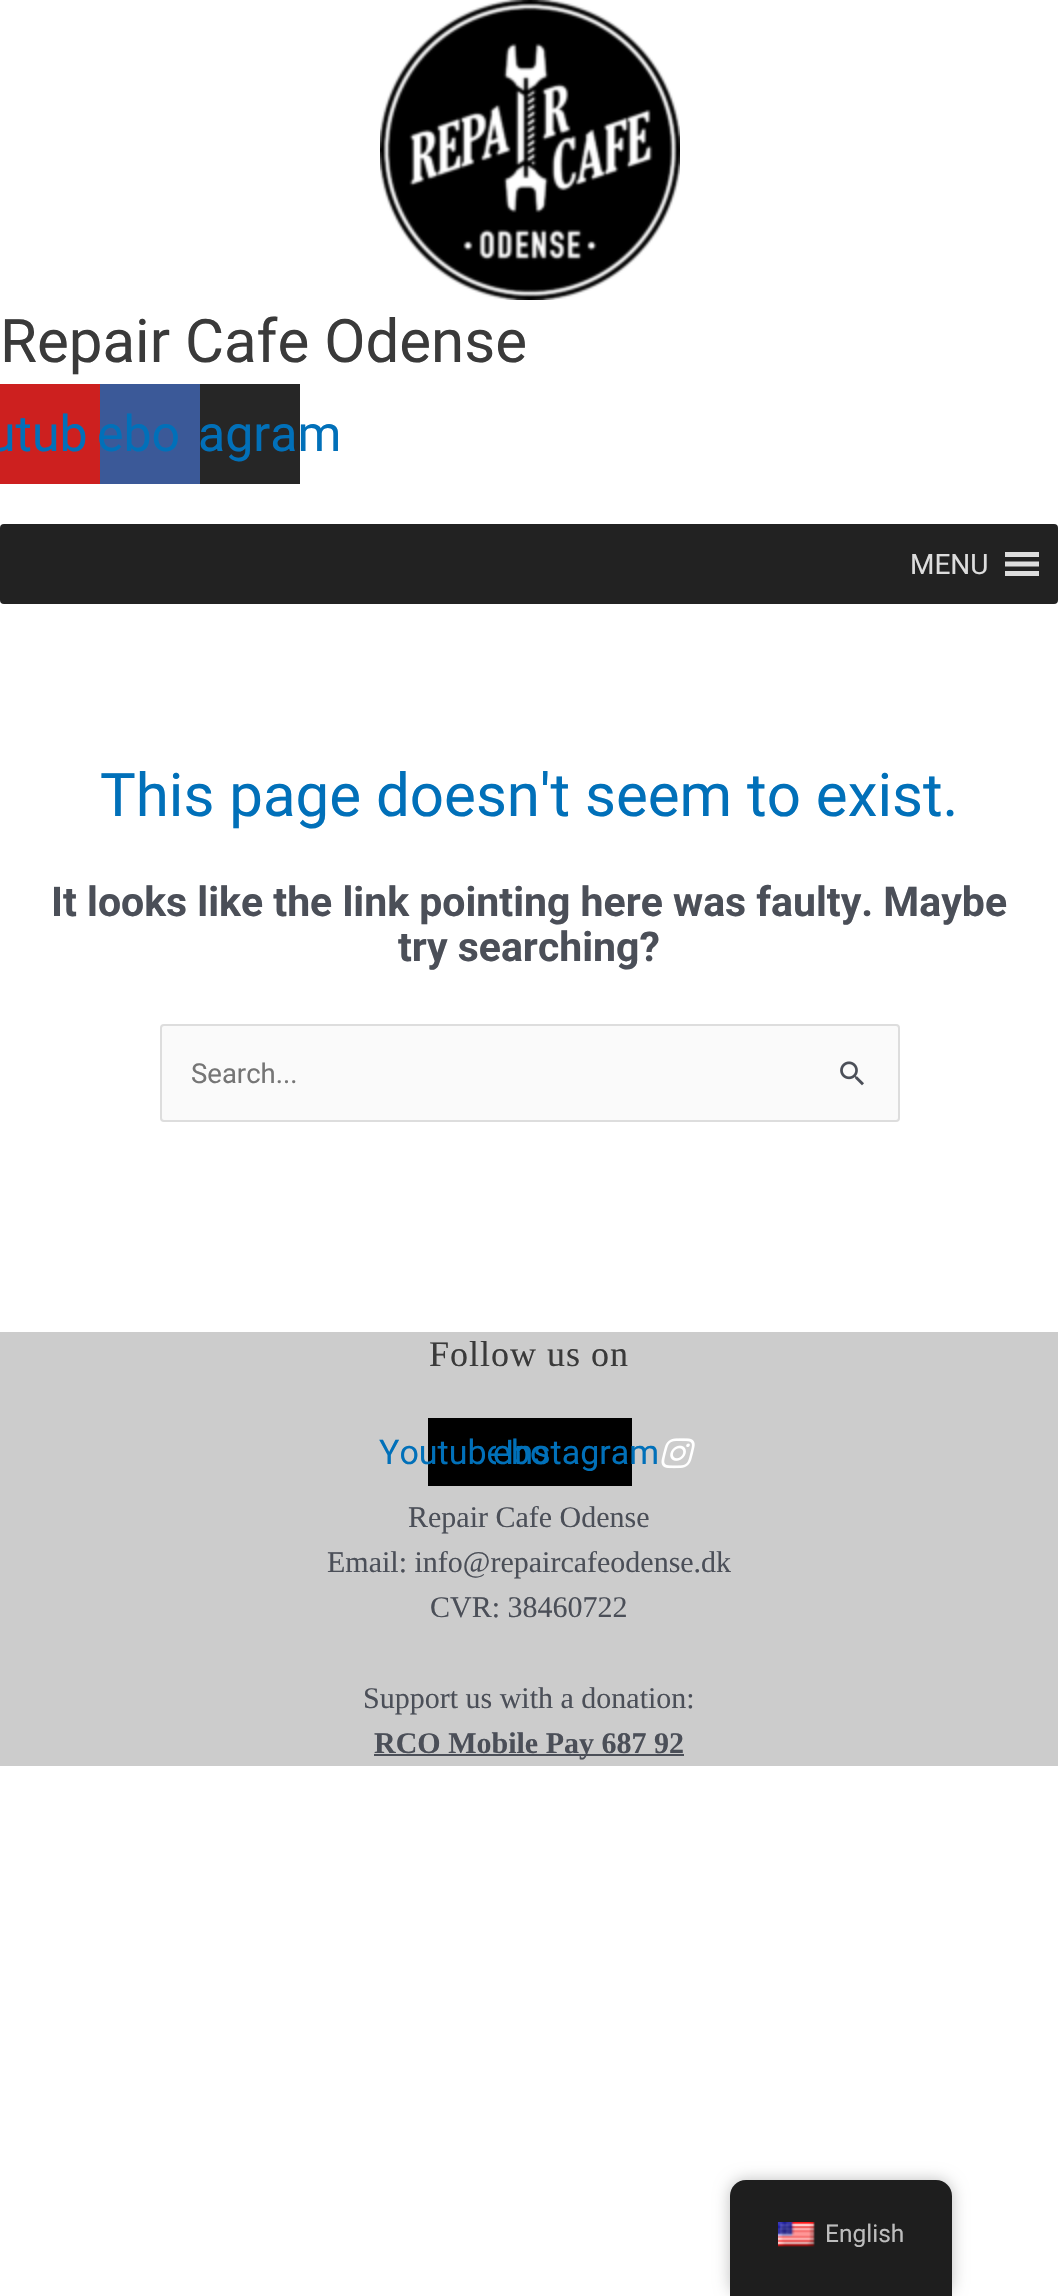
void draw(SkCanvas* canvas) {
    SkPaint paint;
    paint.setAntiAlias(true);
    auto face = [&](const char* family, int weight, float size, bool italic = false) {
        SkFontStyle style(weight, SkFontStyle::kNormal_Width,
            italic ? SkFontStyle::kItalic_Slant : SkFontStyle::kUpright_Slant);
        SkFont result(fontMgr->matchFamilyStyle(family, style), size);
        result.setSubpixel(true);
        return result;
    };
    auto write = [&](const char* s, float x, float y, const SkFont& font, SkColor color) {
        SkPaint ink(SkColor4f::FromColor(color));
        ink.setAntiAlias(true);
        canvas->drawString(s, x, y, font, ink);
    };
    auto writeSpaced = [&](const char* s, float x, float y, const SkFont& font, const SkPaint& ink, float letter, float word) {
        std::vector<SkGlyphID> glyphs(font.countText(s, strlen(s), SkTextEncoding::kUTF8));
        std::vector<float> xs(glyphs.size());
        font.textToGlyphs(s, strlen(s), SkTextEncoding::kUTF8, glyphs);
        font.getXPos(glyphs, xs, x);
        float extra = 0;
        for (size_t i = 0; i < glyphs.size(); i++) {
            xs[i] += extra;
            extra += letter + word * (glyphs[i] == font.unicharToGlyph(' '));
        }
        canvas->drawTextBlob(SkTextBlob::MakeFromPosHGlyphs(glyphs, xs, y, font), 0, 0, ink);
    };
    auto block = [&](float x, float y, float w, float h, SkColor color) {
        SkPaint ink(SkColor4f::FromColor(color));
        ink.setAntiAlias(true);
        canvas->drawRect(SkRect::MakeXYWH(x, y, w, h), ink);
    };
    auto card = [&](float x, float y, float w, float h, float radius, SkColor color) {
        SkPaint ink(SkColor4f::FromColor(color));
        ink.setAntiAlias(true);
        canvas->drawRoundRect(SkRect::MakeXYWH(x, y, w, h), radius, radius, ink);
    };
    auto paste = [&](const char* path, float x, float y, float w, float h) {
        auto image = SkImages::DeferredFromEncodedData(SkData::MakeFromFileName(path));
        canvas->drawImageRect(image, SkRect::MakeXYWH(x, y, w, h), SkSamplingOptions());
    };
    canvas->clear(SK_ColorWHITE);
    paste("pic1.png", 380, 0, 300, 300);
    auto kFont1 = face("Roboto", 400, 60);
    write("Repair Cafe Odense", 0, 362, kFont1, SkColorSetRGB(58, 58, 58));
    block(0, 384, 100, 100, SkColorSetRGB(205, 32, 31));
    auto kFont2 = face("Roboto", 400, 50);
    write("utub", -12, 451, kFont2, SkColorSetRGB(1, 112, 185));
    block(100, 384, 100, 100, SkColorSetRGB(59, 89, 152));
    write("ebo", 97, 451, kFont2, SkColorSetRGB(1, 112, 185));
    block(200, 384, 100, 100, SkColorSetRGB(38, 38, 38));
    write("agram", 198, 451, kFont2, SkColorSetRGB(1, 112, 185));
    card(0, 524, 1058, 80, 4, SkColorSetRGB(34, 34, 34));
    auto kFont3 = face("Roboto", 400, 28);
    write("MENU", 910, 574, kFont3, SkColorSetRGB(221, 221, 221));
    paint.setColor(SkColorSetRGB(221, 221, 221));
    canvas->drawPath(SkPathBuilder().moveTo(1005, 576).lineTo(1039, 576).lineTo(1039, 571).lineTo(1005, 571).close().moveTo(1005, 552).lineTo(1005, 557).lineTo(1039, 557).lineTo(1039, 552).close().moveTo(1005, 566.5f).lineTo(1039, 566.5f).lineTo(1039, 561.5f).lineTo(1005, 561.5f).close().detach(), paint);
    write("This page doesn't seem to exist.", 100, 816, kFont1, SkColorSetRGB(1, 112, 185));
    auto kFont4 = face("Roboto", 700, 41);
    write("It looks like the link pointing here was faulty. Maybe", 51, 916, kFont4, SkColorSetRGB(75, 79, 88));
    write("try searching?", 398, 961, kFont4, SkColorSetRGB(75, 79, 88));
    paint.setColor(SkColorSetRGB(250, 250, 250));
    canvas->drawRoundRect(SkRect::MakeXYWH(161, 1025, 738, 96), 3, 3, paint);
    paint.setStyle(SkPaint::kStroke_Style);
    paint.setStrokeWidth(2);
    paint.setColor(SkColorSetRGB(221, 221, 221));
    canvas->drawRoundRect(SkRect::MakeXYWH(161, 1025, 738, 96), 3, 3, paint);
    auto kFont5 = face("Roboto", 400, 27.5f);
    write("Search...", 191, 1083, kFont5, SkColorSetRGB(117, 117, 117));
    paste("pic2.png", 840, 1061, 24, 25);
    block(0, 1332, 1058, 434, SkColorSetRGB(204, 204, 204));
    auto kFont6 = face("Liberation Serif", 400, 36);
    paint.setStyle(SkPaint::kFill_Style);
    paint.setColor(SkColorSetRGB(58, 58, 58));
    writeSpaced("Follow us on", 429, 1366, kFont6, paint, 1, 0);
    block(428, 1418, 68, 68, SK_ColorBLACK);
    auto kFont7 = face("Roboto", 400, 34);
    write("Youtube", 379, 1464, kFont7, SkColorSetRGB(1, 112, 185));
    block(496, 1418, 136, 68, SK_ColorBLACK);
    write("ebo", 493, 1464, kFont7, SkColorSetRGB(1, 112, 185));
    write("Instagram", 505, 1464, kFont7, SkColorSetRGB(1, 112, 185));
    paste("pic3.png", 661, 1438, 34, 31);
    auto kFont8 = face("Liberation Serif", 400, 30);
    write("Repair Cafe Odense", 408, 1527, kFont8, SkColorSetRGB(75, 79, 88));
    write("Email: info@repaircafeodense.dk", 327, 1572, kFont8, SkColorSetRGB(75, 79, 88));
    write("CVR: 38460722", 430, 1617, kFont8, SkColorSetRGB(75, 79, 88));
    write("Support us with a donation:", 363, 1708, kFont8, SkColorSetRGB(75, 79, 88));
    block(374, 1754, 310, 2, SkColorSetRGB(75, 79, 88));
    auto kFont9 = face("Liberation Serif", 700, 30);
    write("RCO Mobile Pay 687 92", 374, 1753, kFont9, SkColorSetRGB(75, 79, 88));
    paint.setColor(SkColorSetARGB(64, 0, 0, 0));
    paint.setMaskFilter(SkMaskFilter::MakeBlur(kNormal_SkBlurStyle, 8));
    canvas->drawRoundRect(SkRect::MakeXYWH(730, 2180, 222, 116), 16, 16, paint);
    paint.setMaskFilter(nullptr);
    paint.setColor(SkColorSetRGB(30, 30, 30));
    canvas->drawPath(SkPathBuilder().moveTo(746, 2180).lineTo(936, 2180).cubicTo(945, 2180, 952, 2187, 952, 2196).lineTo(952, 2296).lineTo(730, 2296).lineTo(730, 2196).cubicTo(730, 2187, 737, 2180, 746, 2180).close().detach(), paint);
    paste("pic4.png", 778, 2222, 37, 25);
    auto kFont10 = face("Roboto", 400, 24.5f);
    write("English", 825, 2242, kFont10, SkColorSetRGB(189, 189, 189));
}
